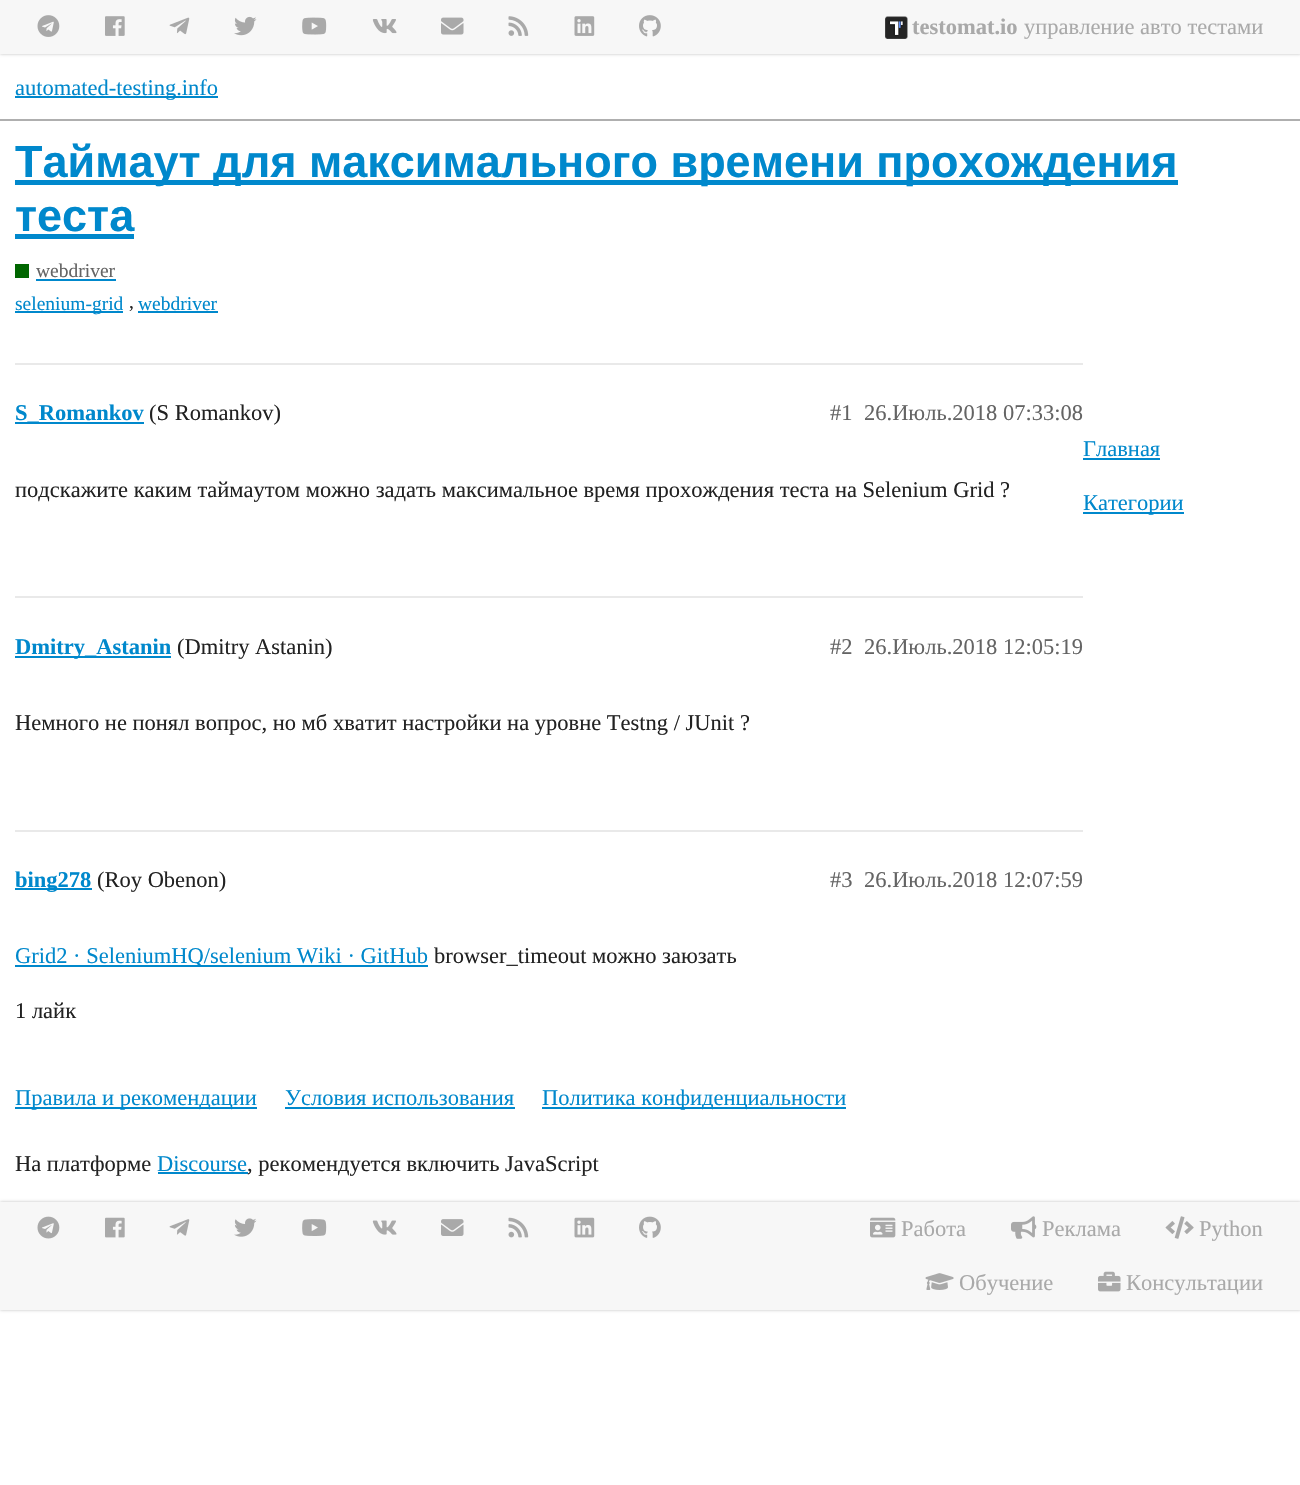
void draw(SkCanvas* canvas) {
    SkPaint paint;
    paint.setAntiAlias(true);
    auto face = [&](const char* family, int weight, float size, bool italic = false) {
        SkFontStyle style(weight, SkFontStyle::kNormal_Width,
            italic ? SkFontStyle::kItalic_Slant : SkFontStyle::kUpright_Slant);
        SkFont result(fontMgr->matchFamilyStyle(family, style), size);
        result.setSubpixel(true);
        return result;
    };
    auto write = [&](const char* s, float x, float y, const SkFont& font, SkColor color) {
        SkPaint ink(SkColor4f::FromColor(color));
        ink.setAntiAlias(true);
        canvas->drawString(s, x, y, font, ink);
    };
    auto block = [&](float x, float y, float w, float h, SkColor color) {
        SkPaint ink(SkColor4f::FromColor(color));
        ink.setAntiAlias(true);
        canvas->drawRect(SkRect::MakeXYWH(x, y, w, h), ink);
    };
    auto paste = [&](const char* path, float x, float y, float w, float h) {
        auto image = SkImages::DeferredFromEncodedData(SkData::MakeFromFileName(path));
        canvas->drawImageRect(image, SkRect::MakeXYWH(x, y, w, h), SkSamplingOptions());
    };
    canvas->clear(SK_ColorWHITE);
    paint.setColor(SkColorSetARGB(64, 0, 0, 0));
    paint.setMaskFilter(SkMaskFilter::MakeBlur(kNormal_SkBlurStyle, 1.5f));
    canvas->drawRect(SkRect::MakeXYWH(0, 0, 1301, 54), paint);
    paint.setMaskFilter(nullptr);
    block(0, 0, 1300, 54, SkColorSetRGB(247, 247, 247));
    paste("pic1.png", 37, 15, 23, 22);
    paste("pic2.png", 105, 16, 20, 20);
    paste("pic3.png", 169, 17, 21, 18);
    paste("pic4.png", 234, 16, 23, 20);
    paste("pic5.png", 302, 17, 25, 18);
    paste("pic6.png", 372, 19, 25, 15);
    paste("pic7.png", 441, 17, 23, 18);
    paste("pic8.png", 508, 16, 21, 20);
    paste("pic9.png", 574, 16, 21, 20);
    paste("pic10.png", 639, 15, 22, 22);
    paste("pic11.png", 885, 16, 23, 23);
    auto kFont1 = face("Liberation Serif", 700, 22.5f);
    write("testomat.io", 912, 34, kFont1, SkColorSetRGB(169, 169, 169));
    auto kFont2 = face("Liberation Serif", 400, 22.5f);
    write("управление авто тестами", 1024, 34, kFont2, SkColorSetRGB(169, 169, 169));
    block(0, 119, 1300, 2, SkColorSetRGB(175, 175, 175));
    block(15, 96, 203, 2, SkColorSetRGB(0, 136, 204));
    write("automated-testing.info", 15, 95, kFont2, SkColorSetRGB(0, 136, 204));
    block(15, 180, 1163, 5, SkColorSetRGB(0, 136, 204));
    auto kFont3 = face("Liberation Sans", 700, 45);
    write("Таймаут для максимального времени прохождения", 15, 177, kFont3, SkColorSetRGB(0, 136, 204));
    write("теста", 15, 231, kFont3, SkColorSetRGB(0, 136, 204));
    block(15, 234, 119, 5, SkColorSetRGB(0, 136, 204));
    block(15, 264, 14, 14, SkColorSetRGB(0, 102, 0));
    auto kFont4 = face("Liberation Serif", 400, 19.5f);
    write("webdriver", 36, 277, kFont4, SkColorSetRGB(100, 100, 100));
    block(36, 279, 80, 2, SkColorSetRGB(0, 136, 204));
    block(15, 311, 108, 2, SkColorSetRGB(0, 136, 204));
    write("selenium-grid", 15, 310, kFont4, SkColorSetRGB(0, 136, 204));
    write(",", 129, 308, kFont4, SkColorSetRGB(34, 34, 34));
    write("webdriver", 138, 310, kFont4, SkColorSetRGB(0, 136, 204));
    block(138, 311, 80, 2, SkColorSetRGB(0, 136, 204));
    block(15, 363, 1068, 2, SkColorSetRGB(233, 233, 233));
    block(15, 422, 129, 2, SkColorSetRGB(0, 136, 204));
    write("S_Romankov", 15, 420, kFont1, SkColorSetRGB(0, 136, 204));
    write("(S Romankov)", 149, 420, kFont2, SkColorSetRGB(34, 34, 34));
    write("#1", 830, 420, kFont2, SkColorSetRGB(100, 100, 100));
    write("26.Июль.2018 07:33:08", 864, 420, kFont2, SkColorSetRGB(100, 100, 100));
    write("подскажите каким таймаутом можно задать максимальное время прохождения теста на Selenium Grid ?", 15, 497, kFont2, SkColorSetRGB(34, 34, 34));
    block(15, 596, 1068, 2, SkColorSetRGB(233, 233, 233));
    block(15, 656, 156, 2, SkColorSetRGB(0, 136, 204));
    write("Dmitry_Astanin", 15, 654, kFont1, SkColorSetRGB(0, 136, 204));
    write("(Dmitry Astanin)", 177, 654, kFont2, SkColorSetRGB(34, 34, 34));
    write("#2", 830, 654, kFont2, SkColorSetRGB(100, 100, 100));
    write("26.Июль.2018 12:05:19", 864, 654, kFont2, SkColorSetRGB(100, 100, 100));
    write("Немного не понял вопрос, но мб хватит настройки на уровне Testng / JUnit ?", 15, 730, kFont2, SkColorSetRGB(34, 34, 34));
    block(15, 830, 1068, 2, SkColorSetRGB(233, 233, 233));
    block(15, 888, 77, 2, SkColorSetRGB(0, 136, 204));
    write("bing278", 15, 887, kFont1, SkColorSetRGB(0, 136, 204));
    write("(Roy Obenon)", 97, 887, kFont2, SkColorSetRGB(34, 34, 34));
    write("#3", 830, 887, kFont2, SkColorSetRGB(100, 100, 100));
    write("26.Июль.2018 12:07:59", 864, 887, kFont2, SkColorSetRGB(100, 100, 100));
    block(15, 965, 413, 2, SkColorSetRGB(0, 136, 204));
    write("Grid2 · SeleniumHQ/selenium Wiki · GitHub", 15, 963, kFont2, SkColorSetRGB(0, 136, 204));
    write("browser_timeout можно заюзать", 434, 963, kFont2, SkColorSetRGB(34, 34, 34));
    write("1 лайк", 15, 1018, kFont2, SkColorSetRGB(34, 34, 34));
    write("Главная", 1083, 456, kFont2, SkColorSetRGB(0, 136, 204));
    block(1083, 458, 77, 2, SkColorSetRGB(0, 136, 204));
    block(1083, 512, 101, 2, SkColorSetRGB(0, 136, 204));
    write("Категории", 1083, 510, kFont2, SkColorSetRGB(0, 136, 204));
    block(15, 1107, 242, 2, SkColorSetRGB(0, 136, 204));
    write("Правила и рекомендации", 15, 1105, kFont2, SkColorSetRGB(0, 136, 204));
    write("Условия использования", 285, 1105, kFont2, SkColorSetRGB(0, 136, 204));
    block(285, 1107, 230, 2, SkColorSetRGB(0, 136, 204));
    block(542, 1107, 304, 2, SkColorSetRGB(0, 136, 204));
    write("Политика конфиденциальности", 542, 1105, kFont2, SkColorSetRGB(0, 136, 204));
    write("На платформе", 15, 1171, kFont2, SkColorSetRGB(34, 34, 34));
    write("Discourse", 157, 1171, kFont2, SkColorSetRGB(0, 136, 204));
    block(158, 1172, 90, 2, SkColorSetRGB(0, 136, 204));
    write(", рекомендуется включить JavaScript", 247, 1171, kFont2, SkColorSetRGB(34, 34, 34));
    paint.setMaskFilter(SkMaskFilter::MakeBlur(kNormal_SkBlurStyle, 1.5f));
    canvas->drawRect(SkRect::MakeXYWH(0, 1202, 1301, 108), paint);
    paint.setMaskFilter(nullptr);
    block(0, 1202, 1300, 108, SkColorSetRGB(247, 247, 247));
    paste("pic12.png", 37, 1216, 23, 23);
    paste("pic13.png", 105, 1217, 20, 21);
    paste("pic14.png", 169, 1219, 21, 17);
    paste("pic15.png", 234, 1218, 23, 19);
    paste("pic16.png", 302, 1219, 25, 17);
    paste("pic17.png", 372, 1220, 25, 15);
    paste("pic18.png", 441, 1219, 23, 17);
    paste("pic19.png", 508, 1217, 21, 21);
    paste("pic20.png", 574, 1217, 21, 21);
    paste("pic21.png", 639, 1216, 22, 22);
    paste("pic22.png", 870, 1217, 26, 21);
    write("Работа", 901, 1236, kFont2, SkColorSetRGB(169, 169, 169));
    paste("pic23.png", 1011, 1216, 26, 23);
    write("Реклама", 1042, 1236, kFont2, SkColorSetRGB(169, 169, 169));
    paste("pic24.png", 1165, 1216, 29, 23);
    write("Python", 1199, 1236, kFont2, SkColorSetRGB(169, 169, 169));
    paste("pic25.png", 925, 1273, 29, 17);
    write("Обучение", 959, 1290, kFont2, SkColorSetRGB(169, 169, 169));
    paste("pic26.png", 1098, 1271, 23, 21);
    write("Консультации", 1126, 1290, kFont2, SkColorSetRGB(169, 169, 169));
}
